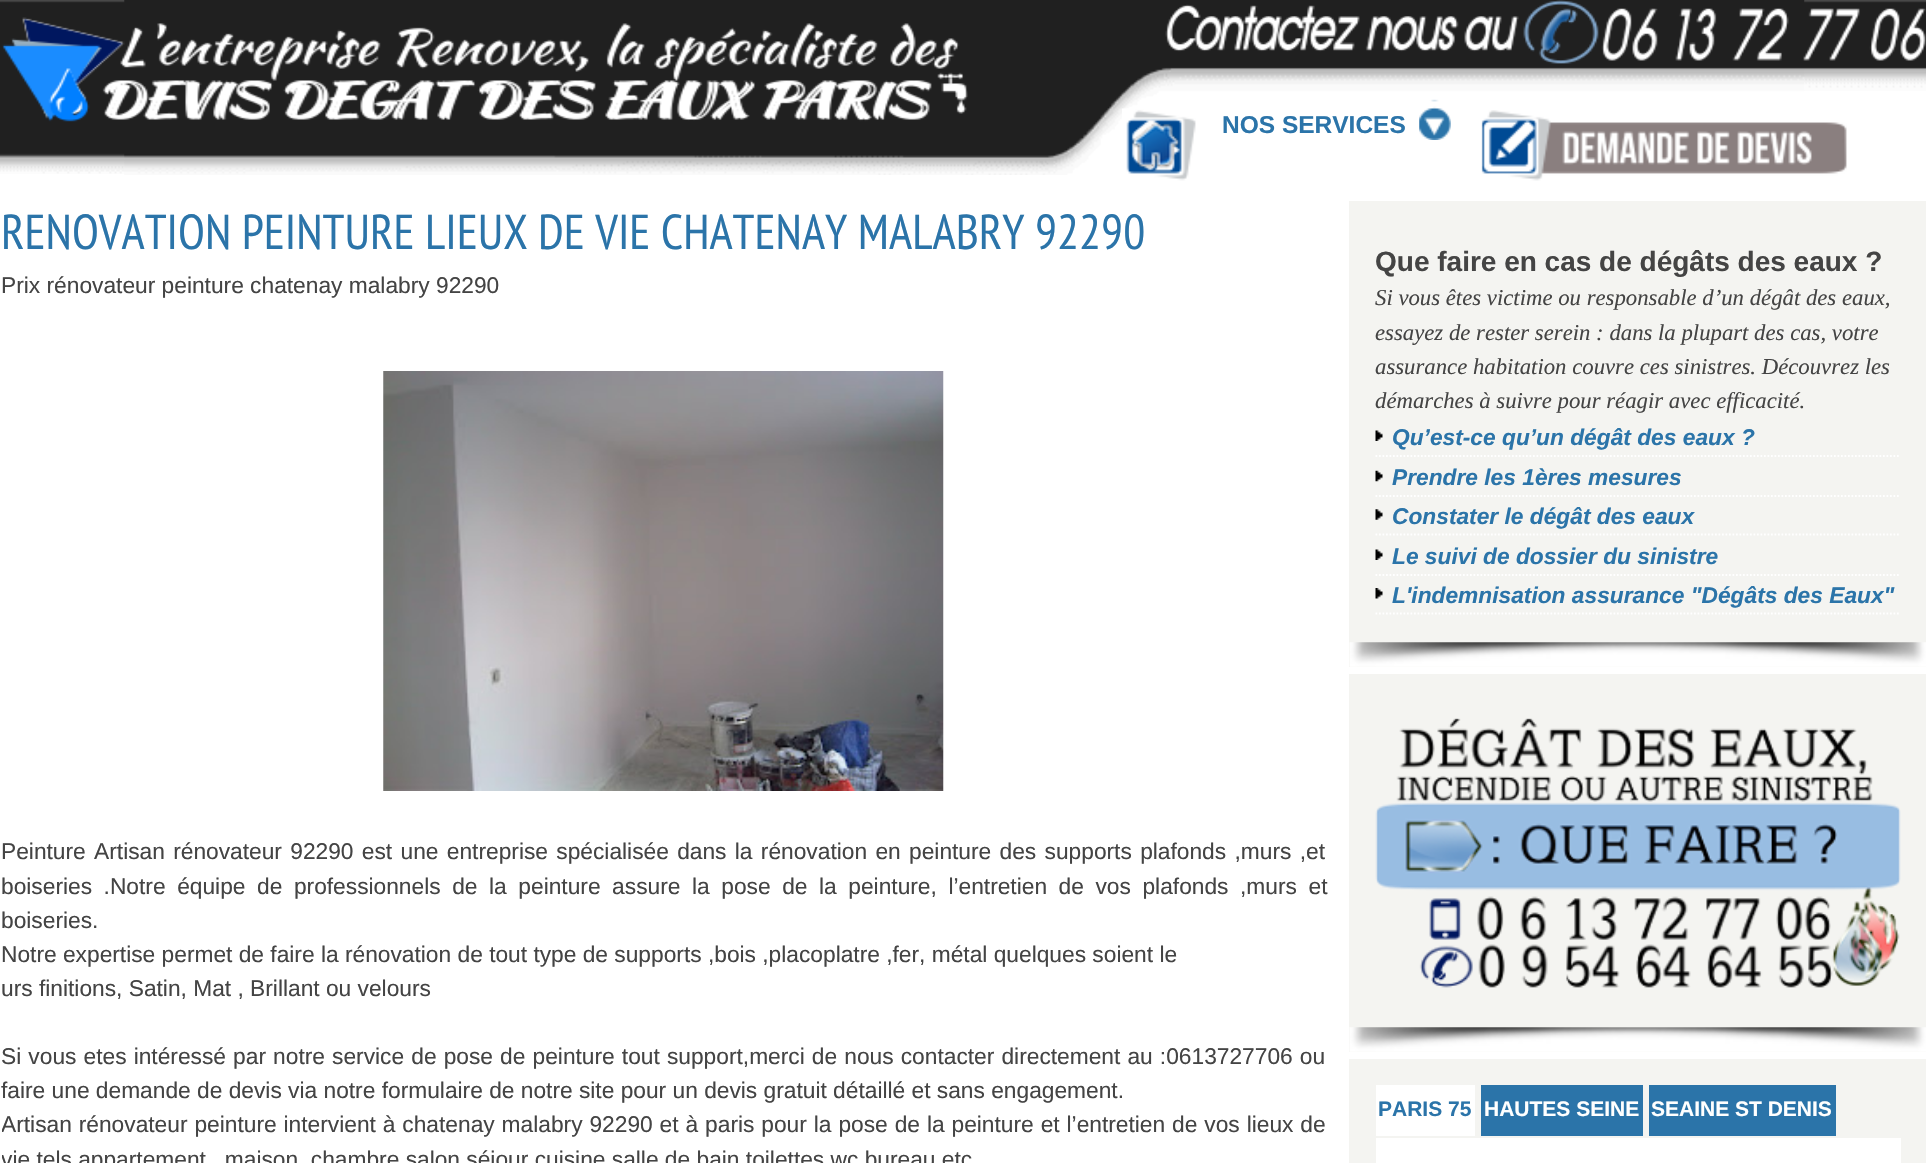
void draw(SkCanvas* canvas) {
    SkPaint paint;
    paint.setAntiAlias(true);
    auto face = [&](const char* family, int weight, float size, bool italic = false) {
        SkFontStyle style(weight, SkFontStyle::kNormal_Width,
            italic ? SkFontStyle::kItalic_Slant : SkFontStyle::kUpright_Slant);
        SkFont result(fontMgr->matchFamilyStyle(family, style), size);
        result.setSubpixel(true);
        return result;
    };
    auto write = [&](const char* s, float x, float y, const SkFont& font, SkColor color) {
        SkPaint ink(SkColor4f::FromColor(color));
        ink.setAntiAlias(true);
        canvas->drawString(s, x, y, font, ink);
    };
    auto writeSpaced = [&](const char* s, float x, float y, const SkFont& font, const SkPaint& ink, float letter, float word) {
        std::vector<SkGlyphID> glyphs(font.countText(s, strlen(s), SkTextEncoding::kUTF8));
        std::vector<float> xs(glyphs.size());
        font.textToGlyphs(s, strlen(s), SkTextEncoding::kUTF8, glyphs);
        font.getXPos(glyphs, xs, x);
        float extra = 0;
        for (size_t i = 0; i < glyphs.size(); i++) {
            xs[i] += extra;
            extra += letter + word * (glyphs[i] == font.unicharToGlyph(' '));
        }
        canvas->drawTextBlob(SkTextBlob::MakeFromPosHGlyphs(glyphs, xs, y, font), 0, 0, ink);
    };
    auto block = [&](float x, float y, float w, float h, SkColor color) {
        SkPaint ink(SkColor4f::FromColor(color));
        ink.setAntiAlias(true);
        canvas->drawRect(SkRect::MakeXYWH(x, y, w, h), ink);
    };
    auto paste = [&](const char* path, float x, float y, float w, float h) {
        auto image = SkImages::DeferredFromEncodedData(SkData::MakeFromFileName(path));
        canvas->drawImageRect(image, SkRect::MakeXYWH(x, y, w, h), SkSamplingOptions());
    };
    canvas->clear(SK_ColorWHITE);
    paste("pic1.png", 0, 0, 1926, 174);
    paste("pic2.png", 124, 0, 1681, 175);
    paste("pic3.png", 2, 17, 966, 105);
    paste("pic4.png", 1165, 0, 761, 64);
    paste("pic5.png", 1122, 108, 74, 73);
    auto kFont1 = face("Liberation Sans", 700, 24.5f);
    write("NOS SERVICES", 1222, 133, kFont1, SkColorSetRGB(43, 116, 169));
    paste("pic6.png", 1419, 99, 32, 41);
    paste("pic7.png", 1481, 110, 366, 71);
    auto kFont2 = face("PT Sans Narrow", 400, 49);
    write("RENOVATION PEINTURE LIEUX DE VIE CHATENAY MALABRY 92290", 1, 249, kFont2, SkColorSetRGB(43, 116, 169));
    auto kFont3 = face("Liberation Sans", 400, 22.75f);
    write("Prix rénovateur peinture chatenay malabry 92290", 1, 293, kFont3, SkColorSetRGB(68, 68, 68));
    paste("pic8.png", 383, 371, 561, 420);
    paint.setColor(SkColorSetRGB(68, 68, 68));
    writeSpaced("Peinture Artisan rénovateur 92290 est une entreprise spécialisée dans la rénovation en peinture des supports plafonds ,murs ,et", 1, 859, kFont3, paint, 0, 2);
    writeSpaced("boiseries .Notre équipe de professionnels de la peinture assure la pose de la peinture, l’entretien de vos plafonds ,murs et", 1, 894, kFont3, paint, 0, 5.25f);
    write("boiseries.", 1, 928, kFont3, SkColorSetRGB(68, 68, 68));
    write("Notre expertise permet de faire la rénovation de tout type de supports ,bois ,placoplatre ,fer, métal quelques soient le", 1, 962, kFont3, SkColorSetRGB(68, 68, 68));
    write("urs finitions, Satin, Mat , Brillant ou velours", 1, 996, kFont3, SkColorSetRGB(68, 68, 68));
    writeSpaced("Si vous etes intéressé par notre service de pose de peinture tout support,merci de nous contacter directement au :0613727706 ou", 1, 1064, kFont3, paint, 0, 0.8f);
    write("faire une demande de devis via notre formulaire de notre site pour un devis gratuit détaillé et sans engagement.", 1, 1098, kFont3, SkColorSetRGB(68, 68, 68));
    canvas->save();
    canvas->clipRect(SkRect::MakeXYWH(2, 201, 1325, 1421));
    writeSpaced("Artisan rénovateur peinture intervient à chatenay malabry 92290 et à paris pour la pose de la peinture et l’entretien de vos lieux de", 1, 1132, kFont3, paint, 0, 0.6f);
    write("vie tels,appartement , maison, chambre,salon,séjour,cuisine,salle de bain,toilettes,wc,bureau,etc", 1, 1167, kFont3, SkColorSetRGB(68, 68, 68));
    canvas->restore();
    block(1349, 201, 577, 466, SkColorSetRGB(244, 244, 241));
    paste("pic9.png", 1349, 642, 577, 25);
    auto kFont4 = face("Liberation Sans", 700, 28);
    write("Que faire en cas de dégâts des eaux ?", 1375, 271, kFont4, SkColorSetRGB(68, 68, 68));
    auto kFont5 = face("Liberation Serif", 400, 22.75f, true);
    write("Si vous êtes victime ou responsable d’un dégât des eaux,", 1375, 305, kFont5, SkColorSetRGB(68, 68, 68));
    write("essayez de rester serein : dans la plupart des cas, votre", 1375, 340, kFont5, SkColorSetRGB(68, 68, 68));
    write("assurance habitation couvre ces sinistres. Découvrez les", 1375, 374, kFont5, SkColorSetRGB(68, 68, 68));
    write("démarches à suivre pour réagir avec efficacité.", 1375, 408, kFont5, SkColorSetRGB(68, 68, 68));
    paste("pic10.png", 1375, 430, 8, 11);
    paint.setStyle(SkPaint::kStroke_Style);
    paint.setStrokeWidth(1.8f);
    paint.setColor(SK_ColorWHITE);
    paint.setPathEffect(SkDashPathEffect::Make({{1.75f, 1.75f}}, 0));
    canvas->drawPath(SkPathBuilder().moveTo(1375.5f, 456).lineTo(1900.5f, 456).detach(), paint);
    paint.setPathEffect(nullptr);
    auto kFont6 = face("Liberation Sans", 700, 22.75f, true);
    write("Qu’est-ce qu’un dégât des eaux ?", 1392, 445, kFont6, SkColorSetRGB(43, 116, 169));
    paste("pic11.png", 1375, 470, 8, 12);
    paint.setPathEffect(SkDashPathEffect::Make({{1.75f, 1.75f}}, 0));
    canvas->drawPath(SkPathBuilder().moveTo(1375.5f, 496).lineTo(1900.5f, 496).detach(), paint);
    paint.setPathEffect(nullptr);
    write("Prendre les 1ères mesures", 1392, 485, kFont6, SkColorSetRGB(43, 116, 169));
    paste("pic12.png", 1375, 509, 8, 11);
    paint.setPathEffect(SkDashPathEffect::Make({{1.75f, 1.75f}}, 0));
    canvas->drawPath(SkPathBuilder().moveTo(1375.5f, 534.5f).lineTo(1900.5f, 534.5f).detach(), paint);
    paint.setPathEffect(nullptr);
    write("Constater le dégât des eaux", 1392, 524, kFont6, SkColorSetRGB(43, 116, 169));
    paste("pic10.png", 1375, 549, 8, 11);
    paint.setPathEffect(SkDashPathEffect::Make({{1.75f, 1.75f}}, 0));
    canvas->drawPath(SkPathBuilder().moveTo(1375.5f, 575).lineTo(1900.5f, 575).detach(), paint);
    paint.setPathEffect(nullptr);
    write("Le suivi de dossier du sinistre", 1392, 564, kFont6, SkColorSetRGB(43, 116, 169));
    paste("pic13.png", 1375, 588, 8, 11);
    paint.setPathEffect(SkDashPathEffect::Make({{1.75f, 1.75f}}, 0));
    canvas->drawPath(SkPathBuilder().moveTo(1375.5f, 613.5f).lineTo(1900.5f, 613.5f).detach(), paint);
    paint.setPathEffect(nullptr);
    write("L'indemnisation assurance \"Dégâts des Eaux\"", 1392, 603, kFont6, SkColorSetRGB(43, 116, 169));
    block(1349, 674, 577, 378, SkColorSetRGB(244, 244, 241));
    paste("pic14.png", 1349, 1027, 577, 25);
    paste("pic15.png", 1375, 718, 526, 270);
    block(1349, 1059, 577, 104, SkColorSetRGB(244, 244, 241));
    block(1376, 1085, 99, 51, SK_ColorWHITE);
    auto kFont7 = face("Liberation Sans", 700, 21);
    write("PARIS 75", 1378, 1116, kFont7, SkColorSetRGB(43, 116, 169));
    block(1481, 1085, 162, 51, SkColorSetRGB(43, 116, 169));
    write("HAUTES SEINE", 1484, 1116, kFont7, SK_ColorWHITE);
    block(1649, 1085, 187, 51, SkColorSetRGB(43, 116, 169));
    write("SEAINE ST DENIS", 1651, 1116, kFont7, SK_ColorWHITE);
    block(1376, 1138, 525, 25, SK_ColorWHITE);
}
